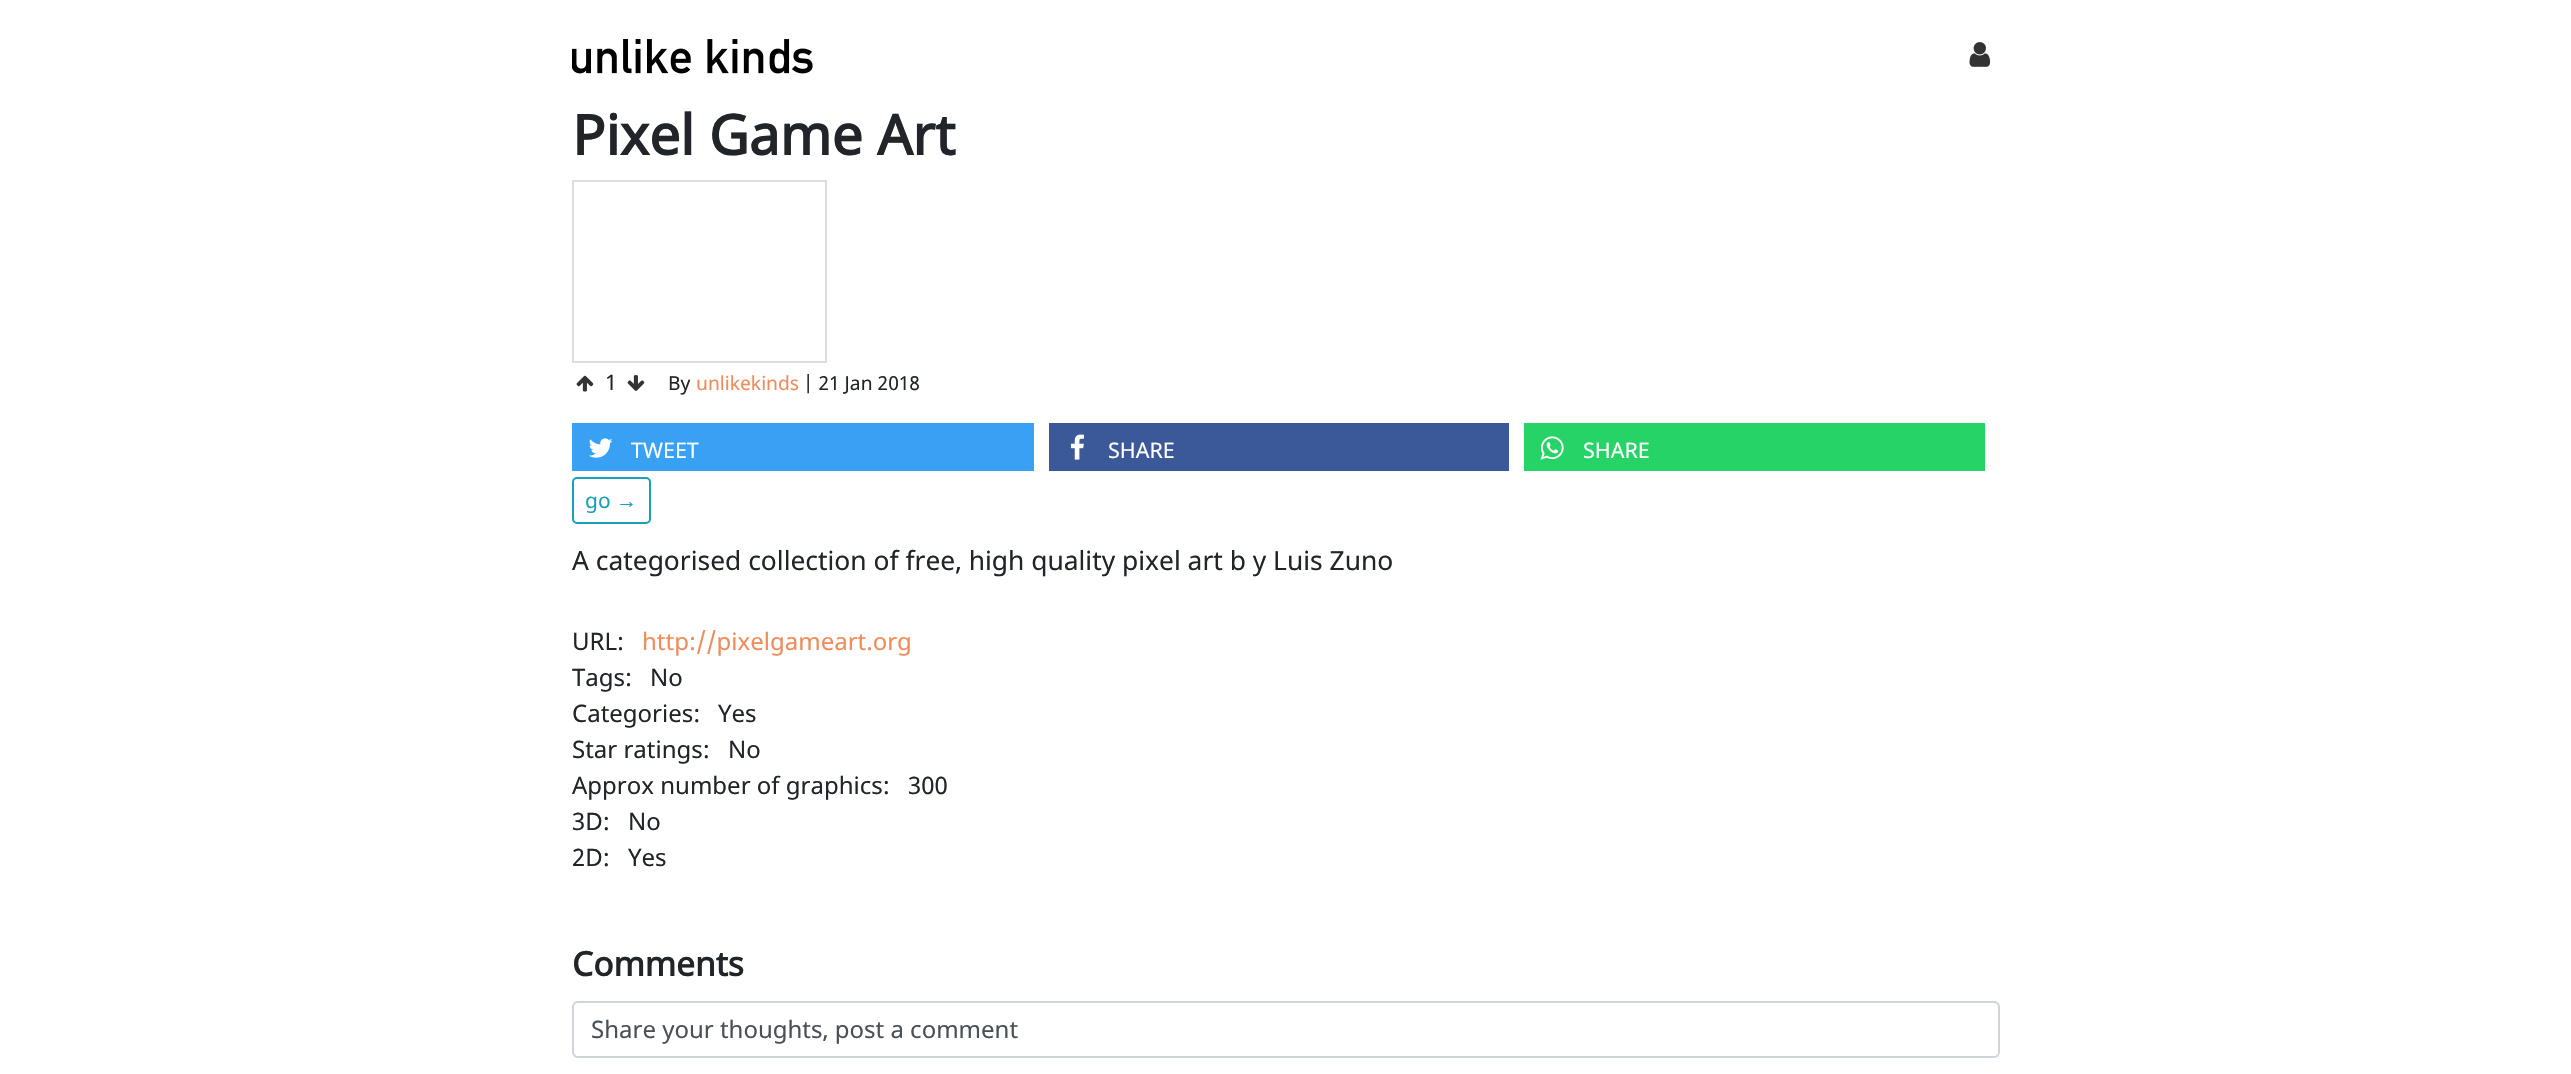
void draw(SkCanvas* canvas) {
    SkPaint paint;
    paint.setAntiAlias(true);
    auto face = [&](const char* family, int weight, float size, bool italic = false) {
        SkFontStyle style(weight, SkFontStyle::kNormal_Width,
            italic ? SkFontStyle::kItalic_Slant : SkFontStyle::kUpright_Slant);
        SkFont result(fontMgr->matchFamilyStyle(family, style), size);
        result.setSubpixel(true);
        return result;
    };
    auto write = [&](const char* s, float x, float y, const SkFont& font, SkColor color) {
        SkPaint ink(SkColor4f::FromColor(color));
        ink.setAntiAlias(true);
        canvas->drawString(s, x, y, font, ink);
    };
    auto block = [&](float x, float y, float w, float h, SkColor color) {
        SkPaint ink(SkColor4f::FromColor(color));
        ink.setAntiAlias(true);
        canvas->drawRect(SkRect::MakeXYWH(x, y, w, h), ink);
    };
    auto paste = [&](const char* path, float x, float y, float w, float h) {
        auto image = SkImages::DeferredFromEncodedData(SkData::MakeFromFileName(path));
        canvas->drawImageRect(image, SkRect::MakeXYWH(x, y, w, h), SkSamplingOptions());
    };
    canvas->clear(SK_ColorWHITE);
    paste("pic1.png", 572, 39, 241, 35);
    paste("pic2.png", 1969, 42, 22, 25);
    auto kFont1 = face("Noto Sans", 700, 55.25f);
    write("Pixel Game Art", 572, 155, kFont1, SkColorSetRGB(33, 37, 41));
    paint.setStyle(SkPaint::kStroke_Style);
    paint.setStrokeWidth(2);
    paint.setColor(SkColorSetRGB(221, 221, 221));
    canvas->drawRect(SkRect::MakeXYWH(573, 181, 253, 181), paint);
    paste("pic3.png", 576, 375, 18, 17);
    auto kFont2 = face("Noto Sans", 400, 21.5f);
    write("1", 605, 390, kFont2, SkColorSetRGB(33, 37, 41));
    paste("pic4.png", 627, 375, 18, 16);
    auto kFont3 = face("Noto Sans", 400, 19.25f);
    write("By", 668, 390, kFont3, SkColorSetRGB(33, 37, 41));
    write("unlikekinds", 696, 390, kFont3, SkColorSetRGB(238, 140, 90));
    write("| 21 Jan 2018", 803, 390, kFont3, SkColorSetRGB(33, 37, 41));
    block(572, 423, 462, 48, SkColorSetRGB(56, 161, 243));
    paste("pic5.png", 589, 438, 24, 20);
    write("TWEET", 631, 458, kFont2, SK_ColorWHITE);
    block(1049, 423, 460, 48, SkColorSetRGB(59, 89, 152));
    paste("pic6.png", 1070, 434, 14, 26);
    write("SHARE", 1108, 458, kFont2, SK_ColorWHITE);
    block(1524, 423, 461, 48, SkColorSetRGB(37, 211, 102));
    paste("pic7.png", 1540, 436, 24, 24);
    write("SHARE", 1583, 458, kFont2, SK_ColorWHITE);
    paint.setColor(SkColorSetRGB(23, 162, 184));
    canvas->drawRoundRect(SkRect::MakeXYWH(573, 478, 77, 45), 4, 4, paint);
    auto kFont4 = face("Noto Sans", 400, 21);
    write("go", 585, 508, kFont4, SkColorSetRGB(23, 162, 184));
    auto kFont5 = face("Liberation Sans", 400, 21);
    write("→", 616, 508, kFont5, SkColorSetRGB(23, 162, 184));
    auto kFont6 = face("Noto Sans", 400, 26.4f);
    write("A categorised collection of free, high quality pixel art b y Luis Zuno", 572, 570, kFont6, SkColorSetRGB(33, 37, 41));
    auto kFont7 = face("Noto Sans", 400, 24);
    write("URL:", 572, 650, kFont7, SkColorSetRGB(33, 37, 41));
    write("http://pixelgameart.org", 642, 650, kFont7, SkColorSetRGB(238, 140, 90));
    write("Tags:", 572, 686, kFont7, SkColorSetRGB(33, 37, 41));
    write("No", 650, 686, kFont7, SkColorSetRGB(33, 37, 41));
    write("Categories:", 572, 722, kFont7, SkColorSetRGB(33, 37, 41));
    write("Yes", 718, 722, kFont7, SkColorSetRGB(33, 37, 41));
    write("Star ratings:", 572, 758, kFont7, SkColorSetRGB(33, 37, 41));
    write("No", 728, 758, kFont7, SkColorSetRGB(33, 37, 41));
    write("Approx number of graphics:", 572, 794, kFont7, SkColorSetRGB(33, 37, 41));
    write("300", 908, 794, kFont7, SkColorSetRGB(33, 37, 41));
    write("3D:", 572, 830, kFont7, SkColorSetRGB(33, 37, 41));
    write("No", 628, 830, kFont7, SkColorSetRGB(33, 37, 41));
    write("2D:", 572, 866, kFont7, SkColorSetRGB(33, 37, 41));
    write("Yes", 628, 866, kFont7, SkColorSetRGB(33, 37, 41));
    auto kFont8 = face("Noto Sans", 700, 33.5f);
    write("Comments", 572, 976, kFont8, SkColorSetRGB(33, 37, 41));
    paint.setColor(SkColorSetRGB(206, 212, 218));
    canvas->drawRoundRect(SkRect::MakeXYWH(573, 1002, 1426, 55), 5, 5, paint);
    write("Share your thoughts, post a comment", 591, 1038, kFont7, SkColorSetRGB(73, 80, 87));
}
